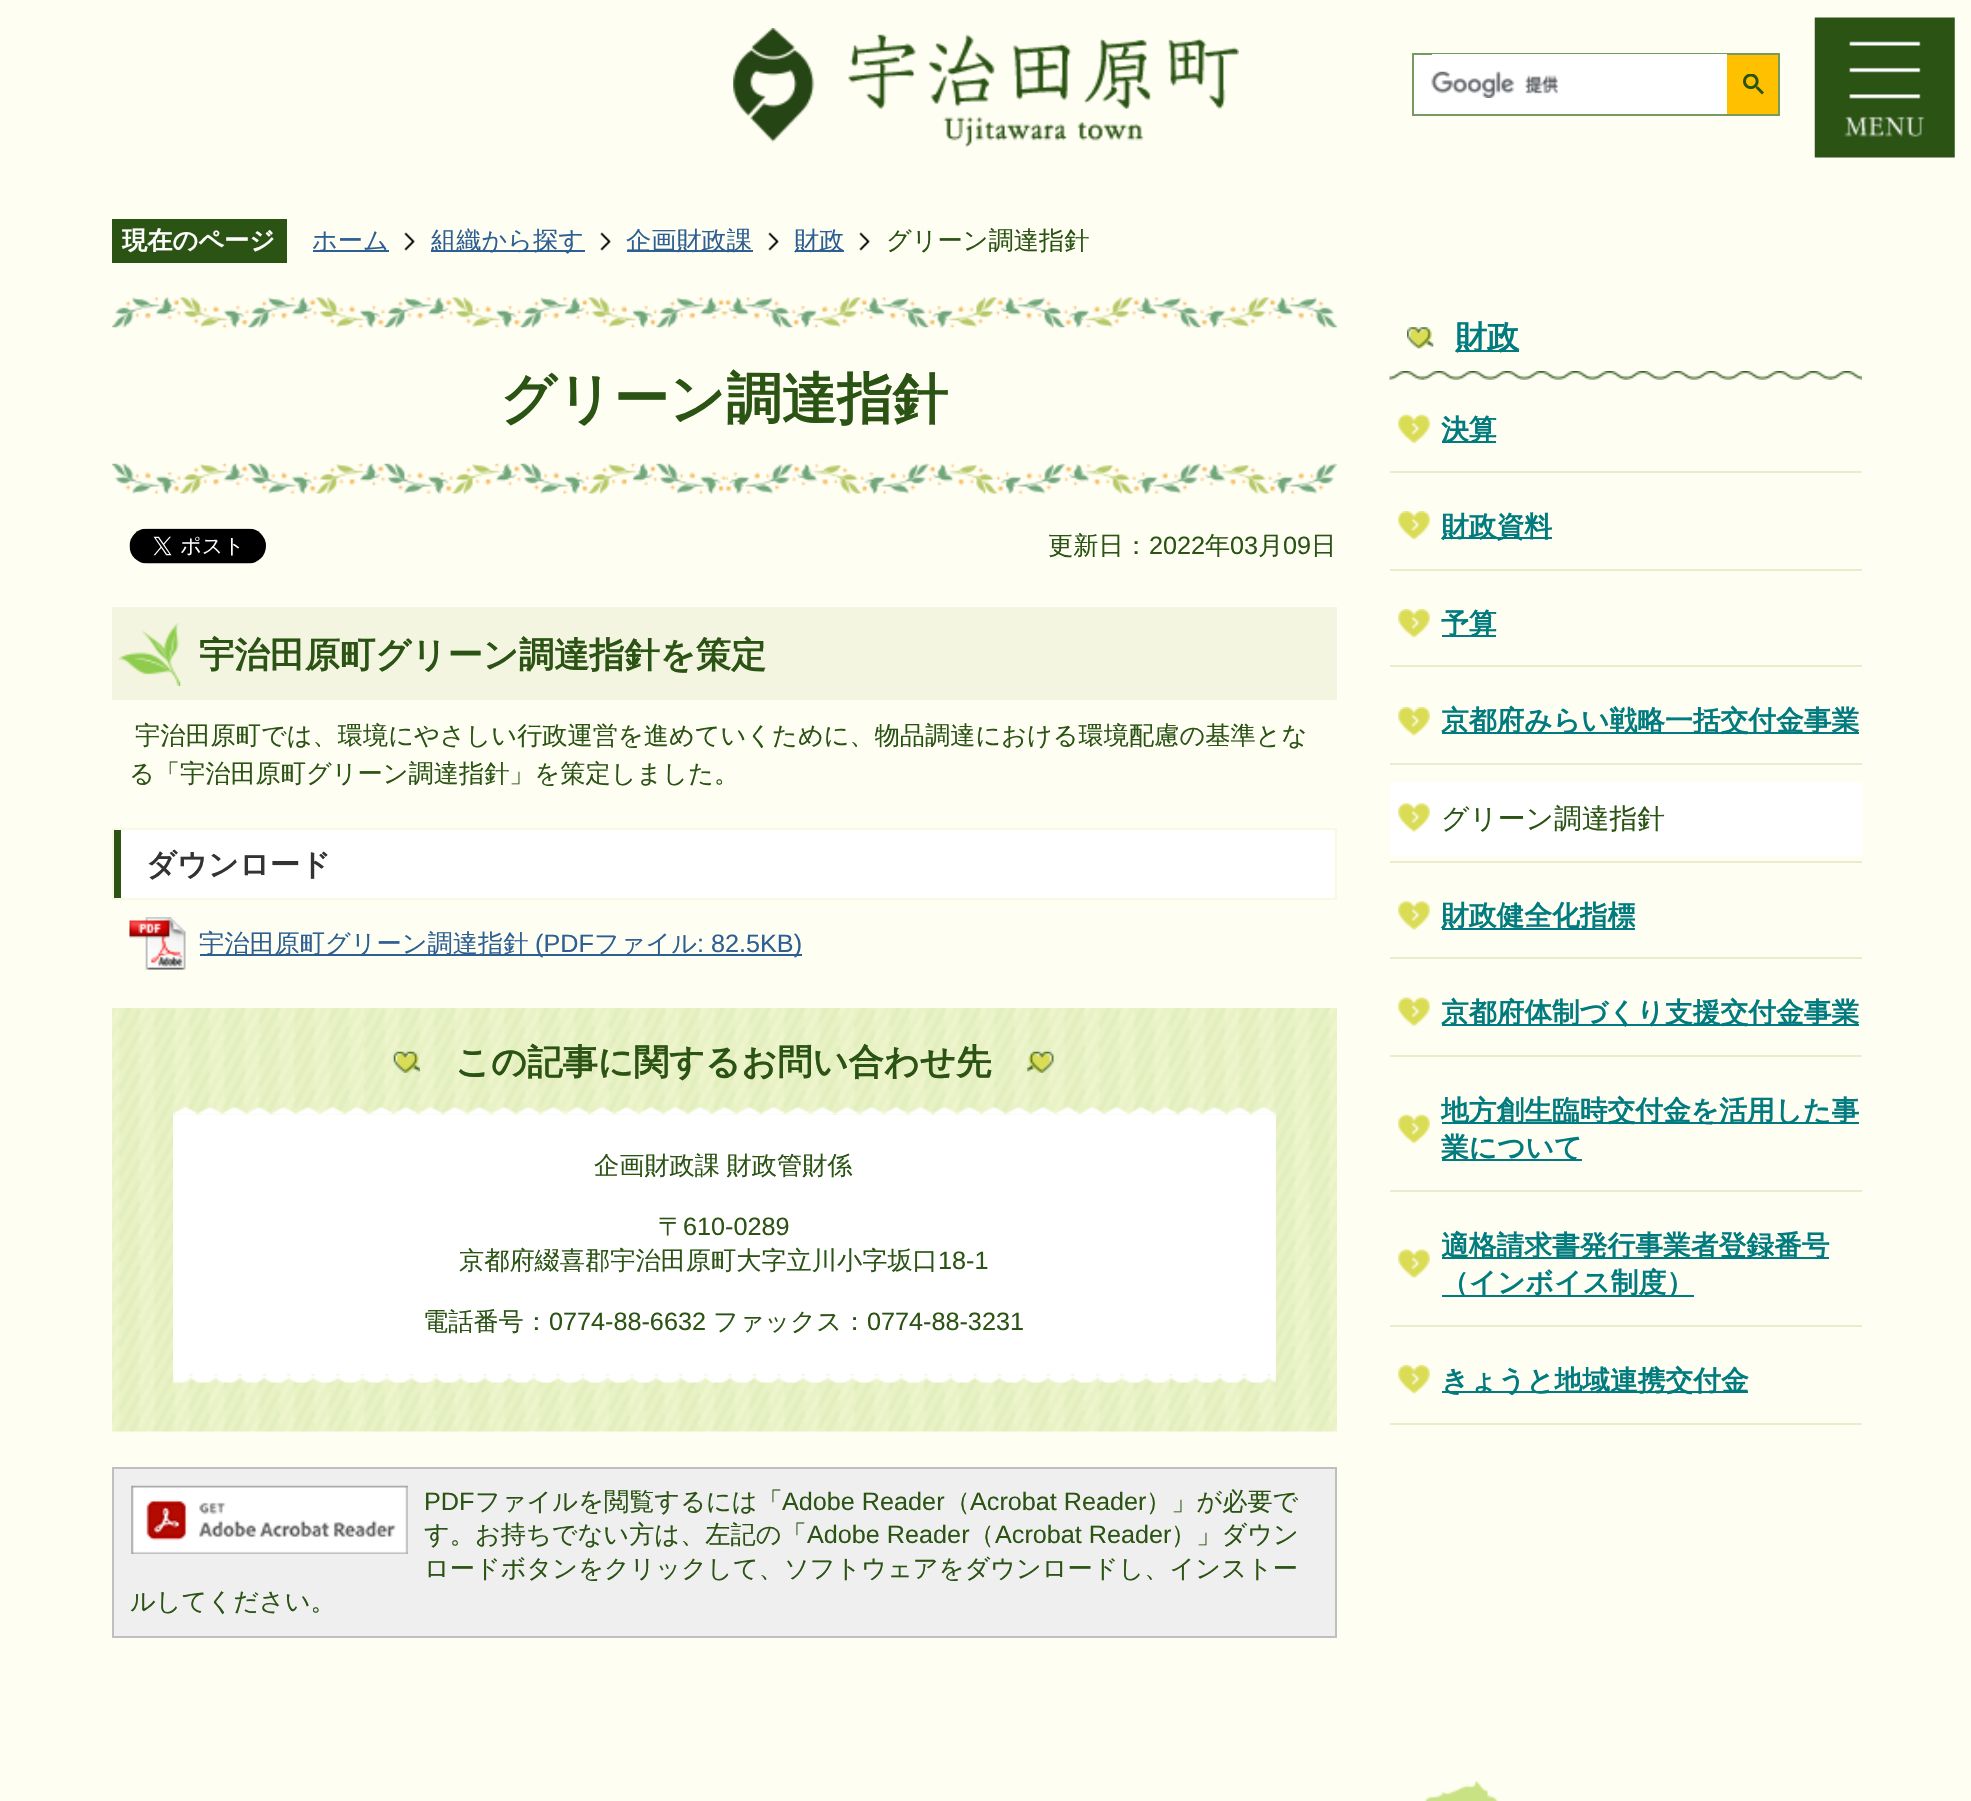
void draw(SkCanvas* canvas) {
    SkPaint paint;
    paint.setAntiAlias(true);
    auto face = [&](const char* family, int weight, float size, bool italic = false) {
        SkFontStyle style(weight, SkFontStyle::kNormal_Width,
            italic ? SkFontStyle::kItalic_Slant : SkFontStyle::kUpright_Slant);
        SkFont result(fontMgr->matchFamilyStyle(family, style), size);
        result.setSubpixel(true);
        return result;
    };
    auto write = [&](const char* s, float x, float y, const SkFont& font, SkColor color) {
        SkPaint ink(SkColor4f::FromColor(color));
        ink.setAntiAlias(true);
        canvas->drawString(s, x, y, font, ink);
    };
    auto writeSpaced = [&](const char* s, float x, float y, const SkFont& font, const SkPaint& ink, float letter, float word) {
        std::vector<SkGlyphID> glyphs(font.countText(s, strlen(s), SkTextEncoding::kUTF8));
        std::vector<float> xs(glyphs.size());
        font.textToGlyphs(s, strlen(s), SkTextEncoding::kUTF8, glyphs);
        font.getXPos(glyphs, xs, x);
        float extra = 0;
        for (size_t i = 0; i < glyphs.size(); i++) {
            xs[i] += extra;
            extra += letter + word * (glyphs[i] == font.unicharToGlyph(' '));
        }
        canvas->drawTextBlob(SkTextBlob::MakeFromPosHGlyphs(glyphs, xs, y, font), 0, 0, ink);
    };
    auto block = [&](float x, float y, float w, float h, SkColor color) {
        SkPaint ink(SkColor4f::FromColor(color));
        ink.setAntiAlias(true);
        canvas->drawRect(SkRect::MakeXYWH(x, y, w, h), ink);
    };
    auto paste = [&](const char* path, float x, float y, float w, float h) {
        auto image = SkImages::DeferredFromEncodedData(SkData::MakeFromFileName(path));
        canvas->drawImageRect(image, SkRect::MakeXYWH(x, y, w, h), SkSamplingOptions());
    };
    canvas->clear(SkColorSetRGB(255, 254, 243));
    paste("pic1.png", 733, 28, 506, 119);
    block(1414, 55, 18, 59, SK_ColorWHITE);
    block(1412, 53, 368, 2, SkColorSetRGB(117, 155, 97));
    block(1412, 114, 315, 2, SkColorSetRGB(117, 155, 97));
    block(1412, 53, 2, 63, SkColorSetRGB(117, 155, 97));
    block(1432, 54, 295, 60, SK_ColorWHITE);
    paste("pic2.png", 1431, 71, 128, 27);
    block(1727, 55, 51, 59, SkColorSetRGB(255, 192, 0));
    block(1778, 53, 2, 63, SkColorSetRGB(117, 155, 97));
    block(1727, 114, 53, 2, SkColorSetRGB(117, 155, 97));
    paste("pic3.png", 1743, 74, 21, 21);
    paste("pic4.png", 1814, 17, 141, 141);
    block(112, 219, 175, 44, SkColorSetRGB(43, 84, 20));
    auto kFont1 = face("WenQuanYi Zen Hei", 700, 25.2f);
    write("現在のページ", 122, 249, kFont1, SK_ColorWHITE);
    block(313, 250, 76, 2, SkColorSetRGB(45, 95, 146));
    auto kFont2 = face("WenQuanYi Zen Hei", 500, 25.2f);
    write("ホーム", 312, 249, kFont2, SkColorSetRGB(45, 95, 146));
    paste("pic5.png", 404, 232, 11, 19);
    block(431, 250, 154, 2, SkColorSetRGB(45, 95, 146));
    write("組織から探す", 431, 249, kFont2, SkColorSetRGB(45, 95, 146));
    paste("pic5.png", 600, 232, 11, 19);
    block(627, 250, 126, 2, SkColorSetRGB(45, 95, 146));
    write("企画財政課", 626, 249, kFont2, SkColorSetRGB(45, 95, 146));
    paste("pic6.png", 768, 232, 11, 19);
    block(795, 250, 49, 2, SkColorSetRGB(45, 95, 146));
    write("財政", 794, 249, kFont2, SkColorSetRGB(45, 95, 146));
    paste("pic5.png", 859, 232, 11, 19);
    write("グリーン調達指針", 886, 249, kFont2, SkColorSetRGB(43, 84, 20));
    paste("pic7.png", 112, 297, 1225, 197);
    auto kFont3 = face("WenQuanYi Zen Hei", 700, 55.5f);
    write("グリーン調達指針", 500, 418, kFont3, SkColorSetRGB(43, 84, 20));
    paste("pic8.png", 129, 528, 137, 36);
    write("更新日：", 1048, 554, kFont2, SkColorSetRGB(43, 84, 20));
    auto kFont4 = face("Liberation Sans", 400, 25.2f);
    write("2022", 1149, 554, kFont4, SkColorSetRGB(43, 84, 20));
    write("年", 1205, 554, kFont2, SkColorSetRGB(43, 84, 20));
    write("03", 1230, 554, kFont4, SkColorSetRGB(43, 84, 20));
    write("月", 1258, 554, kFont2, SkColorSetRGB(43, 84, 20));
    write("09", 1283, 554, kFont4, SkColorSetRGB(43, 84, 20));
    write("日", 1311, 554, kFont2, SkColorSetRGB(43, 84, 20));
    block(112, 607, 1225, 93, SkColorSetRGB(244, 245, 224));
    paste("pic9.png", 119, 623, 62, 63);
    auto kFont5 = face("WenQuanYi Zen Hei", 700, 35.25f);
    write("宇治田原町グリーン調達指針を策定", 199, 667, kFont5, SkColorSetRGB(43, 84, 20));
    write("宇治田原町では、環境にやさしい行政運営を進めていくために、物品調達における環境配慮の基準とな", 135, 744, kFont2, SkColorSetRGB(43, 84, 20));
    write("る「宇治田原町グリーン調達指針」を策定しました。", 129, 782, kFont2, SkColorSetRGB(43, 84, 20));
    block(121, 830, 1214, 68, SK_ColorWHITE);
    paint.setStyle(SkPaint::kStroke_Style);
    paint.setStrokeWidth(2);
    paint.setColor(SkColorSetRGB(250, 248, 227));
    canvas->drawRect(SkRect::MakeXYWH(113, 829, 1223, 70), paint);
    block(114, 830, 7, 68, SkColorSetRGB(43, 84, 20));
    auto kFont6 = face("WenQuanYi Zen Hei", 700, 30.25f);
    write("ダウンロード", 146, 875, kFont6, SkColorSetRGB(51, 51, 51));
    paste("pic10.png", 129, 917, 57, 53);
    block(200, 954, 602, 2, SkColorSetRGB(45, 95, 146));
    write("宇治田原町グリーン調達指針", 199, 952, kFont2, SkColorSetRGB(45, 95, 146));
    write("(PDF", 535, 952, kFont4, SkColorSetRGB(45, 95, 146));
    write("ファイル", 594, 952, kFont2, SkColorSetRGB(45, 95, 146));
    write(": 82.5KB)", 697, 952, kFont4, SkColorSetRGB(45, 95, 146));
    paste("pic11.png", 112, 1008, 1225, 424);
    paste("pic12.png", 393, 1051, 27, 22);
    write("この記事に関するお問い合わせ先", 455, 1074, kFont5, SkColorSetRGB(43, 84, 20));
    paste("pic13.png", 1027, 1051, 27, 22);
    block(173, 1115, 1103, 259, SK_ColorWHITE);
    paste("pic14.png", 173, 1106, 1103, 9);
    paint.setStyle(SkPaint::kFill_Style);
    paint.setColor(SkColorSetRGB(43, 84, 20));
    writeSpaced("企画財政課 財政管財係", 594, 1174, kFont2, paint, 0, -1);
    write("〒", 658, 1235, kFont2, SkColorSetRGB(43, 84, 20));
    write("610-0289", 683, 1235, kFont4, SkColorSetRGB(43, 84, 20));
    write("京都府綴喜郡宇治田原町大字立川小字坂口", 459, 1269, kFont2, SkColorSetRGB(43, 84, 20));
    write("18-1", 938, 1269, kFont4, SkColorSetRGB(43, 84, 20));
    write("電話番号：", 423, 1330, kFont2, SkColorSetRGB(43, 84, 20));
    write("0774-88-6632", 549, 1330, kFont4, SkColorSetRGB(43, 84, 20));
    write("ファックス：", 713, 1330, kFont2, SkColorSetRGB(43, 84, 20));
    write("0774-88-3231", 867, 1330, kFont4, SkColorSetRGB(43, 84, 20));
    paste("pic15.png", 173, 1374, 1103, 9);
    paint.setColor(SkColorSetRGB(239, 239, 239));
    canvas->drawRect(SkRect::MakeXYWH(113, 1468, 1223, 169), paint);
    paint.setStyle(SkPaint::kStroke_Style);
    paint.setColor(SkColorSetRGB(191, 191, 191));
    canvas->drawRect(SkRect::MakeXYWH(113, 1468, 1223, 169), paint);
    paste("pic16.png", 131, 1485, 277, 69);
    write("PDF", 424, 1510, kFont4, SkColorSetRGB(43, 84, 20));
    write("ファイルを閲覧するには「", 475, 1510, kFont2, SkColorSetRGB(43, 84, 20));
    write("Adobe Reader", 782, 1510, kFont4, SkColorSetRGB(43, 84, 20));
    write("（", 945, 1510, kFont2, SkColorSetRGB(43, 84, 20));
    write("Acrobat Reader", 970, 1510, kFont4, SkColorSetRGB(43, 84, 20));
    write("）」が必要で", 1146, 1510, kFont2, SkColorSetRGB(43, 84, 20));
    write("す。お持ちでない方は、左記の「", 424, 1543, kFont2, SkColorSetRGB(43, 84, 20));
    write("Adobe Reader", 807, 1543, kFont4, SkColorSetRGB(43, 84, 20));
    write("（", 969, 1543, kFont2, SkColorSetRGB(43, 84, 20));
    write("Acrobat Reader", 995, 1543, kFont4, SkColorSetRGB(43, 84, 20));
    write("）」ダウン", 1171, 1543, kFont2, SkColorSetRGB(43, 84, 20));
    write("ロードボタンをクリックして、ソフトウェアをダウンロードし、インストー", 424, 1577, kFont2, SkColorSetRGB(43, 84, 20));
    write("ルしてください。", 130, 1610, kFont2, SkColorSetRGB(43, 84, 20));
    paste("pic17.png", 1389, 327, 473, 53);
    block(1456, 350, 63, 2, SkColorSetRGB(2, 123, 127));
    auto kFont7 = face("WenQuanYi Zen Hei", 700, 32);
    write("財政", 1455, 348, kFont7, SkColorSetRGB(2, 123, 127));
    block(1390, 471, 472, 2, SkColorSetRGB(233, 237, 205));
    paste("pic18.png", 1398, 414, 32, 30);
    block(1442, 441, 54, 2, SkColorSetRGB(2, 123, 127));
    auto kFont8 = face("WenQuanYi Zen Hei", 700, 27.75f);
    write("決算", 1441, 439, kFont8, SkColorSetRGB(2, 123, 127));
    block(1390, 569, 472, 2, SkColorSetRGB(233, 237, 205));
    paste("pic19.png", 1398, 511, 32, 29);
    block(1442, 537, 110, 2, SkColorSetRGB(2, 123, 127));
    write("財政資料", 1441, 536, kFont8, SkColorSetRGB(2, 123, 127));
    block(1390, 665, 472, 2, SkColorSetRGB(233, 237, 205));
    paste("pic19.png", 1398, 609, 32, 29);
    block(1442, 635, 54, 2, SkColorSetRGB(2, 123, 127));
    write("予算", 1441, 633, kFont8, SkColorSetRGB(2, 123, 127));
    block(1390, 763, 472, 2, SkColorSetRGB(233, 237, 205));
    paste("pic19.png", 1398, 707, 32, 29);
    block(1442, 732, 417, 2, SkColorSetRGB(2, 123, 127));
    write("京都府みらい戦略一括交付金事業", 1441, 730, kFont8, SkColorSetRGB(2, 123, 127));
    block(1390, 861, 472, 2, SkColorSetRGB(233, 237, 205));
    block(1390, 782, 472, 74, SK_ColorWHITE);
    paste("pic20.png", 1398, 803, 32, 29);
    auto kFont9 = face("WenQuanYi Zen Hei", 500, 27.75f);
    write("グリーン調達指針", 1441, 828, kFont9, SkColorSetRGB(43, 84, 20));
    block(1390, 957, 472, 2, SkColorSetRGB(233, 237, 205));
    paste("pic21.png", 1398, 901, 32, 29);
    block(1442, 928, 193, 2, SkColorSetRGB(2, 123, 127));
    write("財政健全化指標", 1441, 925, kFont8, SkColorSetRGB(2, 123, 127));
    block(1390, 1055, 472, 2, SkColorSetRGB(233, 237, 205));
    paste("pic22.png", 1398, 997, 32, 29);
    block(1442, 1024, 417, 2, SkColorSetRGB(2, 123, 127));
    write("京都府体制づくり支援交付金事業", 1441, 1022, kFont8, SkColorSetRGB(2, 123, 127));
    block(1390, 1190, 472, 2, SkColorSetRGB(233, 237, 205));
    paste("pic18.png", 1398, 1114, 32, 30);
    block(1442, 1122, 417, 2, SkColorSetRGB(2, 123, 127));
    write("地方創生臨時交付金を活用した事", 1441, 1120, kFont8, SkColorSetRGB(2, 123, 127));
    block(1442, 1159, 140, 2, SkColorSetRGB(2, 123, 127));
    write("業について", 1441, 1157, kFont8, SkColorSetRGB(2, 123, 127));
    block(1390, 1325, 472, 2, SkColorSetRGB(233, 237, 205));
    paste("pic22.png", 1398, 1249, 32, 29);
    block(1442, 1257, 387, 2, SkColorSetRGB(2, 123, 127));
    write("適格請求書発行事業者登録番号", 1441, 1255, kFont8, SkColorSetRGB(2, 123, 127));
    block(1442, 1295, 252, 2, SkColorSetRGB(2, 123, 127));
    write("（インボイス制度）", 1441, 1292, kFont8, SkColorSetRGB(2, 123, 127));
    block(1390, 1423, 472, 2, SkColorSetRGB(233, 237, 205));
    paste("pic19.png", 1398, 1365, 32, 29);
    block(1442, 1391, 306, 2, SkColorSetRGB(2, 123, 127));
    write("きょうと地域連携交付金", 1441, 1390, kFont8, SkColorSetRGB(2, 123, 127));
    paste("pic23.png", 1424, 1781, 75, 20);
}
